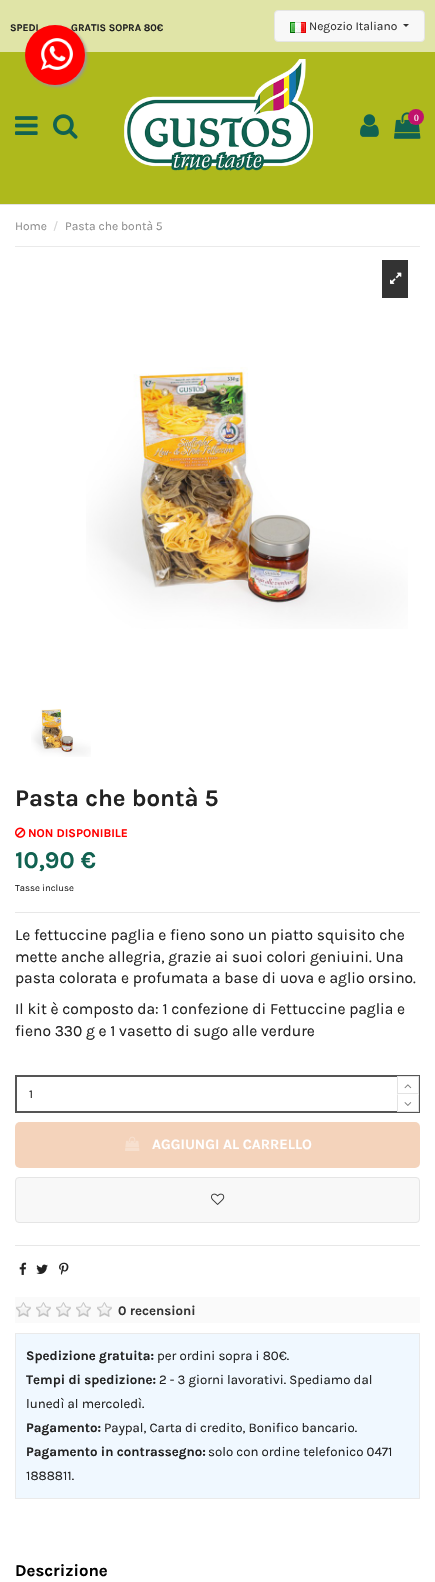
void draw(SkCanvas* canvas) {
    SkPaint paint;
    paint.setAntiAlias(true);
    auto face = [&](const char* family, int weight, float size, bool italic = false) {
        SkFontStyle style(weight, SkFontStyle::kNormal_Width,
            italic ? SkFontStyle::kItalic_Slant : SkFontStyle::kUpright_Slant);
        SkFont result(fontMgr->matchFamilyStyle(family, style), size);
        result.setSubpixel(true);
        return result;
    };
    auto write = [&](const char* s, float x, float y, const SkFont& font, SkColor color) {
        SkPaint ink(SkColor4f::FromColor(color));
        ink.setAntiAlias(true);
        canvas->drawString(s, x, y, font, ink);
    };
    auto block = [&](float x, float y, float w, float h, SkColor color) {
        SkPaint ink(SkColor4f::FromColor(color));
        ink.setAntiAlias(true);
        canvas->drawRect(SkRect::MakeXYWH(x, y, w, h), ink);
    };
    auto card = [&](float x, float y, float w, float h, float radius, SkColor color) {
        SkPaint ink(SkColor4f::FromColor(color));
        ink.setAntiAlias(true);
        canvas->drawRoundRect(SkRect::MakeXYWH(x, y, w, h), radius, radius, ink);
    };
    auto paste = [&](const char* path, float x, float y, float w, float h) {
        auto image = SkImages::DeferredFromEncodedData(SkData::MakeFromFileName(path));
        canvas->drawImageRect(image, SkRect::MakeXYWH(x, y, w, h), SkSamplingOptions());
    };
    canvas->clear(SK_ColorWHITE);
    block(0, 52, 435, 152, SkColorSetRGB(174, 185, 28));
    block(0, 204, 435, 1, SkColorSetRGB(227, 227, 227));
    block(0, 0, 435, 52, SkColorSetRGB(224, 228, 167));
    auto kFont1 = face("Karla", 700, 10.25f);
    write("SPEDI", 10, 31, kFont1, SkColorSetRGB(34, 34, 34));
    write("GRATIS SOPRA 80€", 71, 31, kFont1, SkColorSetRGB(34, 34, 34));
    paint.setColor(SkColorSetRGB(248, 248, 248));
    canvas->drawRoundRect(SkRect::MakeXYWH(274.5f, 10.5f, 150, 31), 3.5f, 3.5f, paint);
    paint.setStyle(SkPaint::kStroke_Style);
    paint.setStrokeWidth(1);
    paint.setColor(SkColorSetRGB(229, 229, 229));
    canvas->drawRoundRect(SkRect::MakeXYWH(274.5f, 10.5f, 150, 31), 3.5f, 3.5f, paint);
    paste("pic1.png", 290, 22, 16, 11);
    auto kFont2 = face("Karla", 400, 12);
    write("Negozio Italiano", 309, 30, kFont2, SkColorSetRGB(51, 51, 51));
    paint.setStyle(SkPaint::kFill_Style);
    paint.setColor(SkColorSetRGB(51, 51, 51));
    canvas->drawPath(SkPathBuilder().moveTo(403, 24).lineTo(409, 24).lineTo(406, 27).close().detach(), paint);
    paste("pic2.png", 15, 116, 23, 19);
    paste("pic3.png", 53, 114, 25, 25);
    paste("pic4.png", 124, 59, 189, 112);
    paste("pic5.png", 360, 114, 19, 23);
    paste("pic6.png", 394, 112, 27, 27);
    paint.setColor(SkColorSetRGB(192, 19, 107));
    canvas->drawCircle(416, 117, 8, paint);
    auto kFont3 = face("Liberation Serif", 400, 9.5f);
    write("0", 414, 121, kFont3, SK_ColorWHITE);
    block(15, 246, 405, 1, SkColorSetRGB(234, 234, 234));
    write("Home", 15, 230, kFont2, SkColorSetRGB(143, 143, 143));
    write("/", 53, 230, kFont2, SkColorSetRGB(210, 210, 210));
    write("Pasta che bontà 5", 65, 230, kFont2, SkColorSetRGB(143, 143, 143));
    block(382, 260, 26, 38, SkColorSetRGB(51, 51, 51));
    paste("pic7.png", 390, 272, 12, 12);
    paste("pic8.png", 86, 367, 322, 262);
    paste("pic9.png", 31, 709, 60, 48);
    block(15, 912, 405, 1, SkColorSetRGB(231, 231, 231));
    auto kFont4 = face("Karla", 700, 24);
    write("Pasta che bontà 5", 15, 806, kFont4, SkColorSetRGB(34, 34, 34));
    paste("pic10.png", 15, 827, 11, 11);
    auto kFont5 = face("Karla", 700, 12);
    write("NON DISPONIBILE", 28, 837, kFont5, SkColorSetRGB(255, 0, 0));
    write("10,90 €", 15, 868, kFont4, SkColorSetRGB(17, 98, 81));
    auto kFont6 = face("Karla", 400, 9.5f);
    write("Tasse incluse", 15, 891, kFont6, SkColorSetRGB(34, 34, 34));
    auto kFont7 = face("Karla", 400, 15.6f);
    write("Le fettuccine paglia e fieno sono un piatto squisito che", 15, 940, kFont7, SkColorSetRGB(34, 34, 34));
    write("mette anche allegria, grazie ai suoi colori geniuini. Una", 15, 962, kFont7, SkColorSetRGB(34, 34, 34));
    write("pasta colorata e profumata a base di uova e aglio orsino.", 15, 983, kFont7, SkColorSetRGB(34, 34, 34));
    write("Il kit è composto da: 1 confezione di Fettuccine paglia e", 15, 1014, kFont7, SkColorSetRGB(34, 34, 34));
    write("fieno 330 g e 1 vasetto di sugo alle verdure", 15, 1036, kFont7, SkColorSetRGB(34, 34, 34));
    paint.setStyle(SkPaint::kStroke_Style);
    paint.setColor(SkColorSetRGB(85, 85, 85));
    canvas->drawRect(SkRect::MakeXYWH(15.5f, 1075.5f, 404, 37), paint);
    canvas->drawRect(SkRect::MakeXYWH(16.5f, 1076.5f, 381, 35), paint);
    write("1", 29, 1098, kFont2, SkColorSetRGB(34, 34, 34));
    paint.setColor(SkColorSetRGB(227, 227, 227));
    canvas->drawRect(SkRect::MakeXYWH(397.5f, 1076.5f, 21, 17), paint);
    paste("pic11.png", 404, 1084, 8, 5);
    block(397, 1094, 1, 17, SK_ColorWHITE);
    paint.setStyle(SkPaint::kFill_Style);
    canvas->drawPath(SkPathBuilder().moveTo(419, 1094).lineTo(419, 1112).lineTo(418, 1111).lineTo(418, 1095).close().detach(), paint);
    block(397, 1111, 22, 1, SkColorSetRGB(227, 227, 227));
    canvas->drawPath(SkPathBuilder().moveTo(397, 1112).lineTo(397, 1094).lineTo(398, 1095).lineTo(398, 1111).close().detach(), paint);
    paste("pic12.png", 404, 1102, 8, 4);
    card(15, 1122, 405, 46, 5, SkColorSetRGB(244, 211, 187));
    paste("pic13.png", 125, 1136, 15, 15);
    auto kFont8 = face("Karla", 700, 14.4f);
    write("AGGIUNGI AL CARRELLO", 152, 1149, kFont8, SK_ColorWHITE);
    paint.setColor(SkColorSetRGB(248, 248, 248));
    canvas->drawRoundRect(SkRect::MakeXYWH(15.5f, 1177.5f, 404, 45), 3.5f, 3.5f, paint);
    paint.setStyle(SkPaint::kStroke_Style);
    paint.setColor(SkColorSetRGB(229, 229, 229));
    canvas->drawRoundRect(SkRect::MakeXYWH(15.5f, 1177.5f, 404, 45), 3.5f, 3.5f, paint);
    paste("pic14.png", 211, 1193, 14, 12);
    block(15, 1245, 405, 1, SkColorSetRGB(231, 231, 231));
    paste("pic15.png", 19, 1262, 8, 13);
    paste("pic16.png", 36, 1264, 12, 10);
    paste("pic17.png", 59, 1262, 10, 13);
    block(15, 1297, 405, 26, SkColorSetRGB(250, 250, 250));
    paste("pic18.png", 16, 1302, 15, 15);
    paste("pic18.png", 36, 1302, 15, 15);
    paste("pic18.png", 56, 1302, 15, 15);
    paste("pic18.png", 76, 1302, 15, 15);
    paste("pic18.png", 97, 1302, 15, 15);
    auto kFont9 = face("Karla", 700, 13.25f);
    write("0 recensioni", 118, 1315, kFont9, SkColorSetRGB(51, 51, 51));
    paint.setStyle(SkPaint::kFill_Style);
    paint.setColor(SkColorSetRGB(240, 248, 255));
    canvas->drawRect(SkRect::MakeXYWH(15.5f, 1333.5f, 404, 165), paint);
    paint.setStyle(SkPaint::kStroke_Style);
    paint.setColor(SkColorSetRGB(234, 234, 234));
    canvas->drawRect(SkRect::MakeXYWH(15.5f, 1333.5f, 404, 165), paint);
    write("Spedizione gratuita:", 26, 1360, kFont9, SkColorSetRGB(34, 34, 34));
    auto kFont10 = face("Karla", 400, 13.25f);
    write("per ordini sopra i 80€.", 157, 1360, kFont10, SkColorSetRGB(34, 34, 34));
    write("Tempi di spedizione:", 26, 1384, kFont9, SkColorSetRGB(34, 34, 34));
    write("2 - 3 giorni lavorativi. Spediamo dal", 159, 1384, kFont10, SkColorSetRGB(34, 34, 34));
    write("lunedì al mercoledì.", 26, 1408, kFont10, SkColorSetRGB(34, 34, 34));
    write("Pagamento:", 26, 1432, kFont9, SkColorSetRGB(34, 34, 34));
    write("Paypal, Carta di credito, Bonifico bancario.", 104, 1432, kFont10, SkColorSetRGB(34, 34, 34));
    write("Pagamento in contrassegno:", 26, 1456, kFont9, SkColorSetRGB(34, 34, 34));
    write("solo con ordine telefonico 0471", 208, 1456, kFont10, SkColorSetRGB(34, 34, 34));
    write("1888811.", 26, 1480, kFont10, SkColorSetRGB(34, 34, 34));
    auto kFont11 = face("Karla", 700, 16.75f);
    write("Descrizione", 15, 1576, kFont11, SK_ColorBLACK);
    paint.setStyle(SkPaint::kFill_Style);
    paint.setColor(SkColorSetRGB(153, 153, 153));
    paint.setMaskFilter(SkMaskFilter::MakeBlur(kNormal_SkBlurStyle, 1.5f));
    canvas->drawRoundRect(SkRect::MakeXYWH(27, 27, 60, 60), 30, 30, paint);
    paint.setMaskFilter(nullptr);
    paint.setColor(SkColorSetRGB(255, 0, 0));
    canvas->drawCircle(55, 55, 30, paint);
    paste("pic19.png", 41, 38, 32, 32);
}
